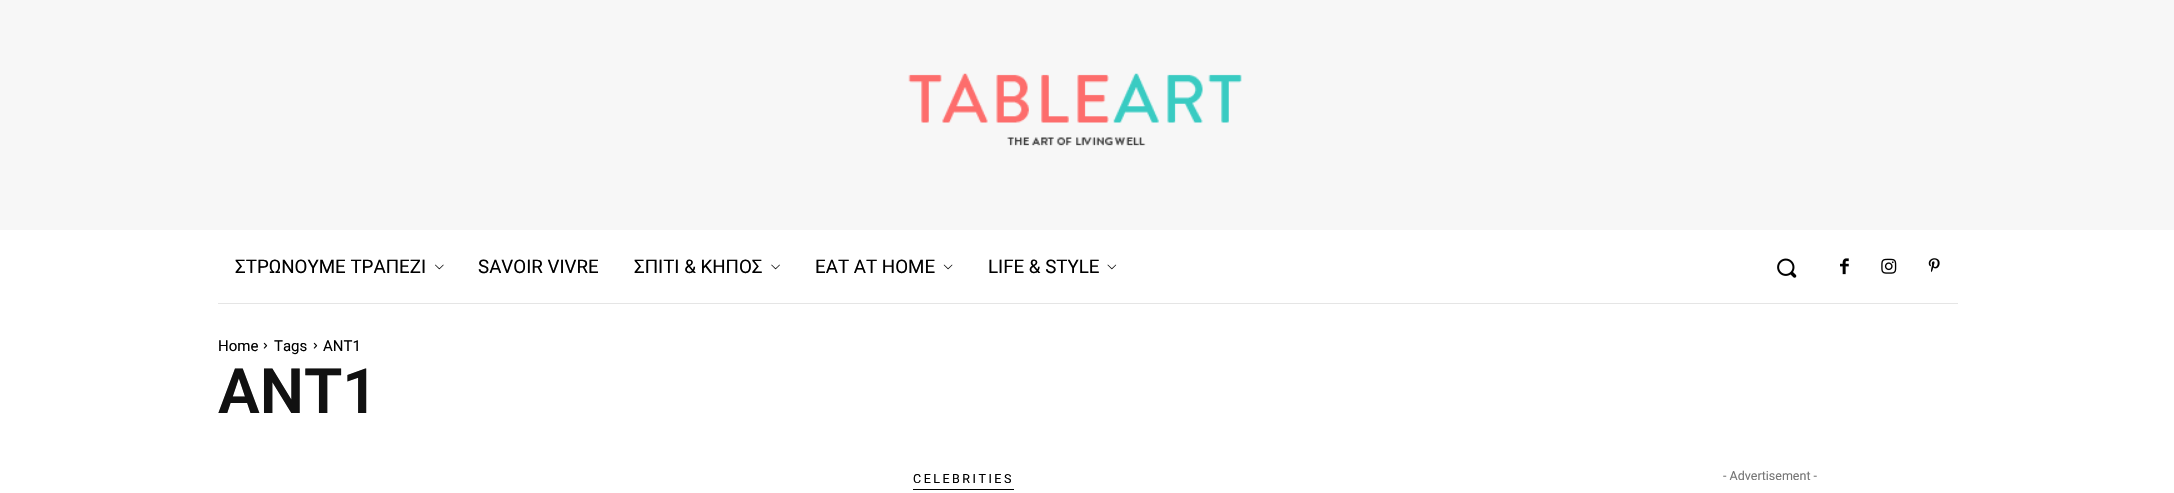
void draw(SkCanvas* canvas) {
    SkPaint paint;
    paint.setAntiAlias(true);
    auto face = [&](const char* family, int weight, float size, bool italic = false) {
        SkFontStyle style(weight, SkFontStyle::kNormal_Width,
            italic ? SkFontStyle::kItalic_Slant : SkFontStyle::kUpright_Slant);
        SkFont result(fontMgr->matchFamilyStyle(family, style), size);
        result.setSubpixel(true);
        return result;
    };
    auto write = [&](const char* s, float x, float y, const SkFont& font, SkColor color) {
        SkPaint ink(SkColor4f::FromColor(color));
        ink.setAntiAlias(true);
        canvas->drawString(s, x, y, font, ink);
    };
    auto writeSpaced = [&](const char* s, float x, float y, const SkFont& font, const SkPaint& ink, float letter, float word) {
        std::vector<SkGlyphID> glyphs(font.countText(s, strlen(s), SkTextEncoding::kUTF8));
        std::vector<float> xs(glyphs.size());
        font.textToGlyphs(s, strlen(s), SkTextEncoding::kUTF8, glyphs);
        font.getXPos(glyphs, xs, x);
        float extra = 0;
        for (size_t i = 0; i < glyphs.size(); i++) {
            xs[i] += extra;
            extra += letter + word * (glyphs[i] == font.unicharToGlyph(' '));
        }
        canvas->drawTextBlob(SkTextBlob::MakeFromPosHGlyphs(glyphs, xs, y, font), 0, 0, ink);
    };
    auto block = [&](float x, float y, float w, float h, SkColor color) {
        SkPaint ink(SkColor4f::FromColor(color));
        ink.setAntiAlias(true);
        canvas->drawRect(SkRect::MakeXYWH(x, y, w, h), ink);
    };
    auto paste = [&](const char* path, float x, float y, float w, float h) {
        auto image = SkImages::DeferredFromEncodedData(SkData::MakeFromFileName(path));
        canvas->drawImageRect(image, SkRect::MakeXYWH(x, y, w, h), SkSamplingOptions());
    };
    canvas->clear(SK_ColorWHITE);
    block(0, 0, 2174, 230, SkColorSetRGB(247, 247, 247));
    paste("pic1.png", 908, 73, 334, 73);
    auto kFont1 = face("Roboto", 400, 18.75f);
    write("ΣΤΡΩΝΟΥΜΕ ΤΡΑΠΕΖΙ", 235, 273, kFont1, SK_ColorBLACK);
    paste("pic2.png", 435, 264, 9, 6);
    write("SAVOIR VIVRE", 478, 273, kFont1, SK_ColorBLACK);
    write("ΣΠΙΤΙ & ΚΗΠΟΣ", 634, 273, kFont1, SK_ColorBLACK);
    paste("pic3.png", 771, 264, 9, 6);
    write("EAT AT HOME", 815, 273, kFont1, SK_ColorBLACK);
    paste("pic4.png", 943, 264, 10, 6);
    write("LIFE & STYLE", 988, 273, kFont1, SK_ColorBLACK);
    paste("pic5.png", 1107, 264, 10, 6);
    paste("pic6.png", 1777, 258, 20, 20);
    paste("pic7.png", 1840, 258, 9, 17);
    paste("pic8.png", 1881, 258, 16, 16);
    paste("pic9.png", 1928, 258, 12, 15);
    block(218, 303, 1740, 1, SkColorSetRGB(229, 229, 229));
    auto kFont2 = face("Roboto", 400, 15);
    write("Home", 218, 351, kFont2, SK_ColorBLACK);
    paste("pic10.png", 263, 342, 5, 7);
    write("Tags", 274, 351, kFont2, SK_ColorBLACK);
    paste("pic10.png", 313, 342, 5, 7);
    write("ΑΝΤ1", 323, 351, kFont2, SK_ColorBLACK);
    auto kFont3 = face("Roboto", 600, 62.5f);
    write("ΑΝΤ1", 218, 413, kFont3, SkColorSetRGB(17, 17, 17));
    block(913, 489, 101, 1, SK_ColorBLACK);
    auto kFont4 = face("Roboto", 400, 12.5f);
    paint.setColor(SK_ColorBLACK);
    writeSpaced("CELEBRITIES", 913, 483, kFont4, paint, 2.5f, 0);
    write("- Advertisement -", 1723, 480, kFont4, SkColorSetRGB(118, 118, 118));
}
